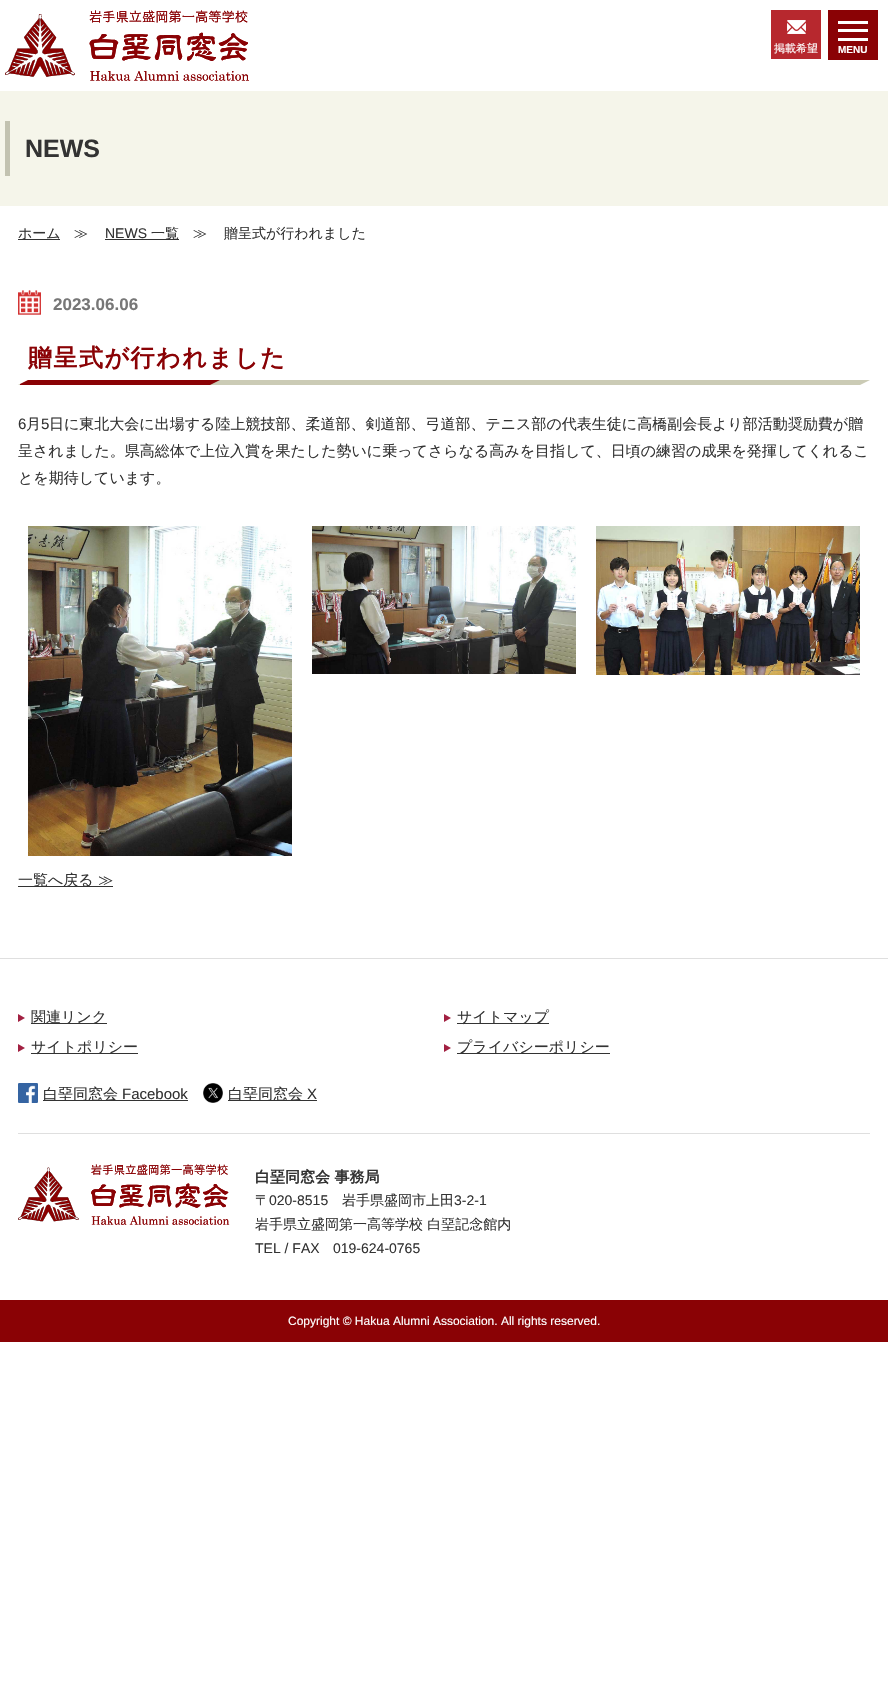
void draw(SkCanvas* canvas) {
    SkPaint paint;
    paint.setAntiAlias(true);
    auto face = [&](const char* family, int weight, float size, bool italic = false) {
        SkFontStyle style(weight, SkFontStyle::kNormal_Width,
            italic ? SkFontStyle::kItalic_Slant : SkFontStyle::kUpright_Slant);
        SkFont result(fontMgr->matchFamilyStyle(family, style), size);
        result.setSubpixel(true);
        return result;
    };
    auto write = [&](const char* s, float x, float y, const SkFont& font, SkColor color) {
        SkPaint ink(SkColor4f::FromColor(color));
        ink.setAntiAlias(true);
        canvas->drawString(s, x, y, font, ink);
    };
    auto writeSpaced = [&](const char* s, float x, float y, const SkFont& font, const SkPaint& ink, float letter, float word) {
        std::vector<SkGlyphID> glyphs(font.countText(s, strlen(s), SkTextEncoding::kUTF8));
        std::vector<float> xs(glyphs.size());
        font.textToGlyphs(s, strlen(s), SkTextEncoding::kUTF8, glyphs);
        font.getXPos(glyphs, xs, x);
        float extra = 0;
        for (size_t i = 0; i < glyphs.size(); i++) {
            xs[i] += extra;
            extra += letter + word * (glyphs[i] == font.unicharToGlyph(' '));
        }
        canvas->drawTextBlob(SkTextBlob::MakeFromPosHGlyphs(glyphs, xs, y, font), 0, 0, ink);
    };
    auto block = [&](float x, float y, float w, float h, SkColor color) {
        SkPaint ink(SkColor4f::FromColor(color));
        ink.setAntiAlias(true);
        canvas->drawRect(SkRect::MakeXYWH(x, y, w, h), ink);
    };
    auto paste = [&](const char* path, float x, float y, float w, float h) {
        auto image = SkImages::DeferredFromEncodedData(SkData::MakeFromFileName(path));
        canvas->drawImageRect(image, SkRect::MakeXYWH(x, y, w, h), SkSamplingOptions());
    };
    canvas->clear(SK_ColorWHITE);
    paste("pic1.png", 5, 10, 244, 71);
    block(771, 10, 50, 49, SkColorSetRGB(183, 40, 46));
    paste("pic2.png", 787, 20, 19, 14);
    auto kFont1 = face("WenQuanYi Zen Hei", 500, 11);
    write("掲載希望", 774, 52, kFont1, SK_ColorWHITE);
    block(828, 10, 50, 50, SkColorSetRGB(138, 2, 5));
    block(838, 29, 30, 3, SK_ColorWHITE);
    block(838, 21, 30, 3, SK_ColorWHITE);
    block(838, 38, 30, 3, SK_ColorWHITE);
    auto kFont2 = face("Liberation Sans", 700, 10);
    write("MENU", 838, 53, kFont2, SK_ColorWHITE);
    block(0, 91, 888, 115, SkColorSetRGB(245, 245, 234));
    block(5, 121, 5, 55, SkColorSetRGB(194, 194, 176));
    auto kFont3 = face("Liberation Sans", 700, 25);
    write("NEWS", 25, 157, kFont3, SkColorSetRGB(51, 51, 51));
    block(18, 239, 42, 1, SkColorSetRGB(51, 51, 51));
    auto kFont4 = face("WenQuanYi Zen Hei", 500, 14);
    write("ホーム", 18, 238, kFont4, SkColorSetRGB(51, 51, 51));
    write("≫", 74, 238, kFont4, SkColorSetRGB(51, 51, 51));
    auto kFont5 = face("Liberation Sans", 400, 14);
    write("NEWS", 105, 238, kFont5, SkColorSetRGB(51, 51, 51));
    block(105, 239, 74, 1, SkColorSetRGB(51, 51, 51));
    write("一覧", 151, 238, kFont4, SkColorSetRGB(51, 51, 51));
    write("≫", 193, 238, kFont4, SkColorSetRGB(51, 51, 51));
    write("贈呈式が行われました", 224, 238, kFont4, SkColorSetRGB(51, 51, 51));
    paste("pic3.png", 18, 290, 23, 25);
    auto kFont6 = face("Liberation Sans", 700, 17);
    write("2023.06.06", 53, 310, kFont6, SkColorSetRGB(119, 119, 119));
    block(18, 380, 852, 5, SkColorSetRGB(203, 203, 181));
    auto kFont7 = face("WenQuanYi Zen Hei", 700, 24);
    paint.setColor(SkColorSetRGB(138, 2, 5));
    writeSpaced("贈呈式が行われました", 28, 366, kFont7, paint, 1.5f, 0);
    block(20, 380, 190, 5, SkColorSetRGB(138, 2, 5));
    canvas->drawPath(SkPathBuilder().moveTo(210, 380).lineTo(220, 380).lineTo(210, 385).close().detach(), paint);
    paint.setColor(SK_ColorWHITE);
    canvas->drawPath(SkPathBuilder().moveTo(18, 380).lineTo(28, 380).lineTo(18, 385).close().detach(), paint);
    canvas->drawPath(SkPathBuilder().moveTo(870, 385).lineTo(860, 385).lineTo(870, 380).close().detach(), paint);
    auto kFont8 = face("Liberation Sans", 400, 15);
    write("6", 18, 429, kFont8, SkColorSetRGB(51, 51, 51));
    auto kFont9 = face("WenQuanYi Zen Hei", 500, 15);
    write("月", 26, 429, kFont9, SkColorSetRGB(51, 51, 51));
    write("5", 41, 429, kFont8, SkColorSetRGB(51, 51, 51));
    write("日に東北大会に出場する陸上競技部、柔道部、剣道部、弓道部、テニス部の代表生徒に高橋副会長より部活動奨励費が贈", 49, 429, kFont9, SkColorSetRGB(51, 51, 51));
    write("呈されました。県高総体で上位入賞を果たした勢いに乗ってさらなる高みを目指して、日頃の練習の成果を発揮してくれるこ", 18, 456, kFont9, SkColorSetRGB(51, 51, 51));
    write("とを期待しています。", 18, 483, kFont9, SkColorSetRGB(51, 51, 51));
    paste("pic4.png", 28, 526, 264, 330);
    paste("pic5.png", 312, 526, 264, 148);
    paste("pic6.png", 596, 526, 264, 149);
    block(18, 886, 95, 1, SkColorSetRGB(51, 51, 51));
    write("一覧へ戻る ≫", 18, 885, kFont9, SkColorSetRGB(51, 51, 51));
    block(0, 958, 888, 1, SkColorSetRGB(223, 223, 223));
    paint.setColor(SkColorSetRGB(162, 32, 65));
    canvas->drawPath(SkPathBuilder().moveTo(18, 1022).lineTo(18, 1014).lineTo(25, 1018).close().detach(), paint);
    block(31, 1023, 76, 1, SkColorSetRGB(51, 51, 51));
    write("関連リンク", 31, 1022, kFont9, SkColorSetRGB(51, 51, 51));
    canvas->drawPath(SkPathBuilder().moveTo(444, 1022).lineTo(444, 1014).lineTo(451, 1018).close().detach(), paint);
    block(457, 1023, 92, 1, SkColorSetRGB(51, 51, 51));
    write("サイトマップ", 457, 1022, kFont9, SkColorSetRGB(51, 51, 51));
    canvas->drawPath(SkPathBuilder().moveTo(18, 1052).lineTo(18, 1044).lineTo(25, 1048).close().detach(), paint);
    block(31, 1053, 107, 1, SkColorSetRGB(51, 51, 51));
    write("サイトポリシー", 31, 1052, kFont9, SkColorSetRGB(51, 51, 51));
    canvas->drawPath(SkPathBuilder().moveTo(444, 1052).lineTo(444, 1044).lineTo(451, 1048).close().detach(), paint);
    block(457, 1053, 153, 1, SkColorSetRGB(51, 51, 51));
    write("プライバシーポリシー", 457, 1052, kFont9, SkColorSetRGB(51, 51, 51));
    paste("pic7.png", 18, 1083, 20, 20);
    block(43, 1100, 145, 1, SkColorSetRGB(51, 51, 51));
    write("白堊同窓会", 43, 1099, kFont9, SkColorSetRGB(51, 51, 51));
    write("Facebook", 122, 1099, kFont8, SkColorSetRGB(51, 51, 51));
    paste("pic8.png", 203, 1083, 20, 20);
    block(228, 1100, 89, 1, SkColorSetRGB(51, 51, 51));
    write("白堊同窓会", 228, 1099, kFont9, SkColorSetRGB(51, 51, 51));
    write("X", 307, 1099, kFont8, SkColorSetRGB(51, 51, 51));
    block(18, 1133, 852, 1, SkColorSetRGB(223, 223, 223));
    paste("pic9.png", 18, 1164, 212, 61);
    auto kFont10 = face("WenQuanYi Zen Hei", 700, 15);
    write("白堊同窓会 事務局", 255, 1182, kFont10, SkColorSetRGB(51, 51, 51));
    write("〒", 255, 1205, kFont4, SkColorSetRGB(51, 51, 51));
    write("020-8515", 269, 1205, kFont5, SkColorSetRGB(51, 51, 51));
    write("岩手県盛岡市上田", 342, 1205, kFont4, SkColorSetRGB(51, 51, 51));
    write("3-2-1", 454, 1205, kFont5, SkColorSetRGB(51, 51, 51));
    write("岩手県立盛岡第一高等学校 白堊記念館内", 255, 1229, kFont4, SkColorSetRGB(51, 51, 51));
    write("TEL / FAX", 255, 1253, kFont5, SkColorSetRGB(51, 51, 51));
    write("019-624-0765", 333, 1253, kFont5, SkColorSetRGB(51, 51, 51));
    block(0, 1300, 888, 42, SkColorSetRGB(138, 2, 5));
    auto kFont11 = face("Liberation Sans", 400, 12);
    write("Copyright © Hakua Alumni Association. All rights reserved.", 288, 1325, kFont11, SK_ColorWHITE);
}
